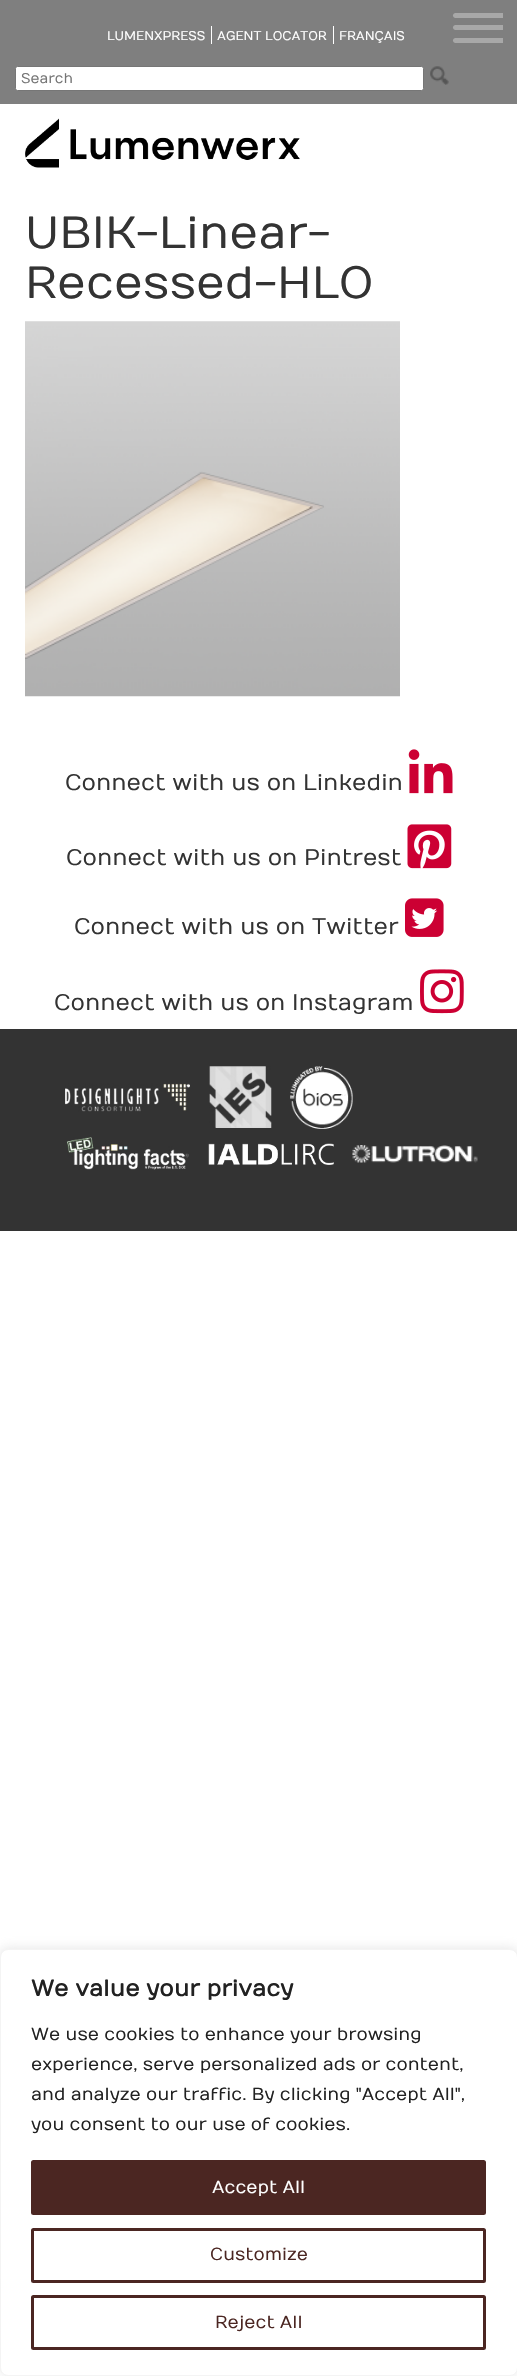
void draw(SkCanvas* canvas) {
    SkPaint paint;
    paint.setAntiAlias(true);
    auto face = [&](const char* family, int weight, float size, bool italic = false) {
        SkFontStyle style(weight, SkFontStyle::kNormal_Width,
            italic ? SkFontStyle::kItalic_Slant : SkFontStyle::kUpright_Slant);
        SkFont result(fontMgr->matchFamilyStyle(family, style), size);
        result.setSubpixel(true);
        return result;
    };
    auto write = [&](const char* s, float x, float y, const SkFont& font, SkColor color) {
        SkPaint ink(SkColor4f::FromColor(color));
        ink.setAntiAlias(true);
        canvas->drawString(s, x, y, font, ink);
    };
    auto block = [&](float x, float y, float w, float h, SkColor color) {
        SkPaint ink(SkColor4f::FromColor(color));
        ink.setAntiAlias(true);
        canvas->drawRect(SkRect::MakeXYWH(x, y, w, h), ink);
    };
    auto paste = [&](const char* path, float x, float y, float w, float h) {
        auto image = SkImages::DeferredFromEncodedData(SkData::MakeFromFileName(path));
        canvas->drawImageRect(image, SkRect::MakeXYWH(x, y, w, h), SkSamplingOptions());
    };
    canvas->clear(SK_ColorWHITE);
    block(0, 0, 517, 104, SkColorSetRGB(127, 127, 127));
    paint.setColor(SkColorSetRGB(168, 168, 168));
    canvas->drawPath(SkPathBuilder().moveTo(455.5f, 25).lineTo(503, 25).lineTo(503, 30).lineTo(455.5f, 30).cubicTo(454, 30, 453, 29, 453, 27.5f).cubicTo(453, 26, 454, 25, 455.5f, 25).close().detach(), paint);
    canvas->drawPath(SkPathBuilder().moveTo(455.5f, 13).lineTo(503, 13).lineTo(503, 18).lineTo(455.5f, 18).cubicTo(454, 18, 453, 17, 453, 15.5f).cubicTo(453, 14, 454, 13, 455.5f, 13).close().detach(), paint);
    canvas->drawPath(SkPathBuilder().moveTo(455.5f, 38).lineTo(503, 38).lineTo(503, 43).lineTo(455.5f, 43).cubicTo(454, 43, 453, 42, 453, 40.5f).cubicTo(453, 39, 454, 38, 455.5f, 38).close().detach(), paint);
    auto kFont1 = face("Numans", 400, 12.5f);
    write("LUMENXPRESS", 107, 40, kFont1, SK_ColorWHITE);
    block(211, 26, 1, 18, SK_ColorWHITE);
    write("AGENT LOCATOR", 217, 40, kFont1, SK_ColorWHITE);
    block(333, 26, 1, 18, SK_ColorWHITE);
    write("FRANÇAIS", 339, 40, kFont1, SK_ColorWHITE);
    paint.setColor(SK_ColorWHITE);
    canvas->drawRoundRect(SkRect::MakeXYWH(15.5f, 66.5f, 408, 24), 2, 2, paint);
    paint.setStyle(SkPaint::kStroke_Style);
    paint.setStrokeWidth(1);
    paint.setColor(SkColorSetRGB(118, 118, 118));
    canvas->drawRoundRect(SkRect::MakeXYWH(15.5f, 66.5f, 408, 24), 2, 2, paint);
    auto kFont2 = face("Numans", 400, 14);
    write("Search", 21, 83, kFont2, SkColorSetRGB(117, 117, 117));
    paste("pic1.png", 430, 66, 19, 19);
    paste("pic2.png", 25, 118, 275, 50);
    auto kFont3 = face("Numans", 400, 45);
    write("UBIK-Linear-", 25, 248, kFont3, SkColorSetRGB(51, 51, 51));
    write("Recessed-HLO", 25, 298, kFont3, SkColorSetRGB(51, 51, 51));
    paste("pic3.png", 25, 321, 375, 376);
    auto kFont4 = face("Numans", 400, 22.5f);
    write("Connect with us on Linkedin", 65, 790, kFont4, SkColorSetRGB(51, 51, 51));
    paste("pic4.png", 408, 749, 45, 45);
    write("Connect with us on Pintrest", 66, 865, kFont4, SkColorSetRGB(51, 51, 51));
    paste("pic5.png", 407, 824, 45, 45);
    write("Connect with us on Twitter", 74, 934, kFont4, SkColorSetRGB(51, 51, 51));
    paste("pic6.png", 405, 898, 39, 39);
    write("Connect with us on Instagram", 54, 1010, kFont4, SkColorSetRGB(51, 51, 51));
    paste("pic7.png", 420, 969, 44, 45);
    block(0, 1029, 517, 202, SkColorSetRGB(51, 51, 51));
    paste("pic8.png", 65, 1083, 125, 29);
    paste("pic9.png", 209, 1066, 63, 62);
    paste("pic10.png", 290, 1066, 63, 63);
    paste("pic11.png", 67, 1137, 122, 33);
    paste("pic12.png", 208, 1143, 126, 22);
    paste("pic13.png", 352, 1145, 126, 18);
    paint.setStyle(SkPaint::kFill_Style);
    paint.setColor(SkColorSetARGB(77, 172, 171, 171));
    paint.setMaskFilter(SkMaskFilter::MakeBlur(kNormal_SkBlurStyle, 6));
    canvas->drawRoundRect(SkRect::MakeXYWH(0, 1948, 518, 427), 8, 8, paint);
    paint.setMaskFilter(nullptr);
    paint.setColor(SK_ColorWHITE);
    canvas->drawRoundRect(SkRect::MakeXYWH(0.5f, 1949.5f, 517, 426), 7.5f, 7.5f, paint);
    paint.setStyle(SkPaint::kStroke_Style);
    paint.setColor(SkColorSetRGB(244, 244, 244));
    canvas->drawRoundRect(SkRect::MakeXYWH(0.5f, 1949.5f, 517, 426), 7.5f, 7.5f, paint);
    auto kFont5 = face("Numans", 700, 22.5f);
    write("We value your privacy", 31, 1996, kFont5, SkColorSetRGB(33, 33, 33));
    auto kFont6 = face("Numans", 400, 17.5f);
    write("We use cookies to enhance your browsing", 31, 2040, kFont6, SkColorSetRGB(33, 33, 33));
    write("experience, serve personalized ads or content,", 31, 2070, kFont6, SkColorSetRGB(33, 33, 33));
    write("and analyze our traffic. By clicking \"Accept All\",", 31, 2100, kFont6, SkColorSetRGB(33, 33, 33));
    write("you consent to our use of cookies.", 31, 2130, kFont6, SkColorSetRGB(33, 33, 33));
    paint.setStyle(SkPaint::kFill_Style);
    paint.setColor(SkColorSetRGB(75, 38, 34));
    canvas->drawRoundRect(SkRect::MakeXYWH(32.5f, 2161.5f, 452, 52), 1, 1, paint);
    paint.setStyle(SkPaint::kStroke_Style);
    paint.setStrokeWidth(3);
    canvas->drawRoundRect(SkRect::MakeXYWH(32.5f, 2161.5f, 452, 52), 1, 1, paint);
    write("Accept All", 212, 2193, kFont6, SK_ColorWHITE);
    canvas->drawRoundRect(SkRect::MakeXYWH(32.5f, 2229.5f, 452, 52), 1, 1, paint);
    write("Customize", 210, 2260, kFont6, SkColorSetRGB(75, 38, 34));
    canvas->drawRoundRect(SkRect::MakeXYWH(32.5f, 2296.5f, 452, 52), 1, 1, paint);
    write("Reject All", 215, 2328, kFont6, SkColorSetRGB(75, 38, 34));
}
